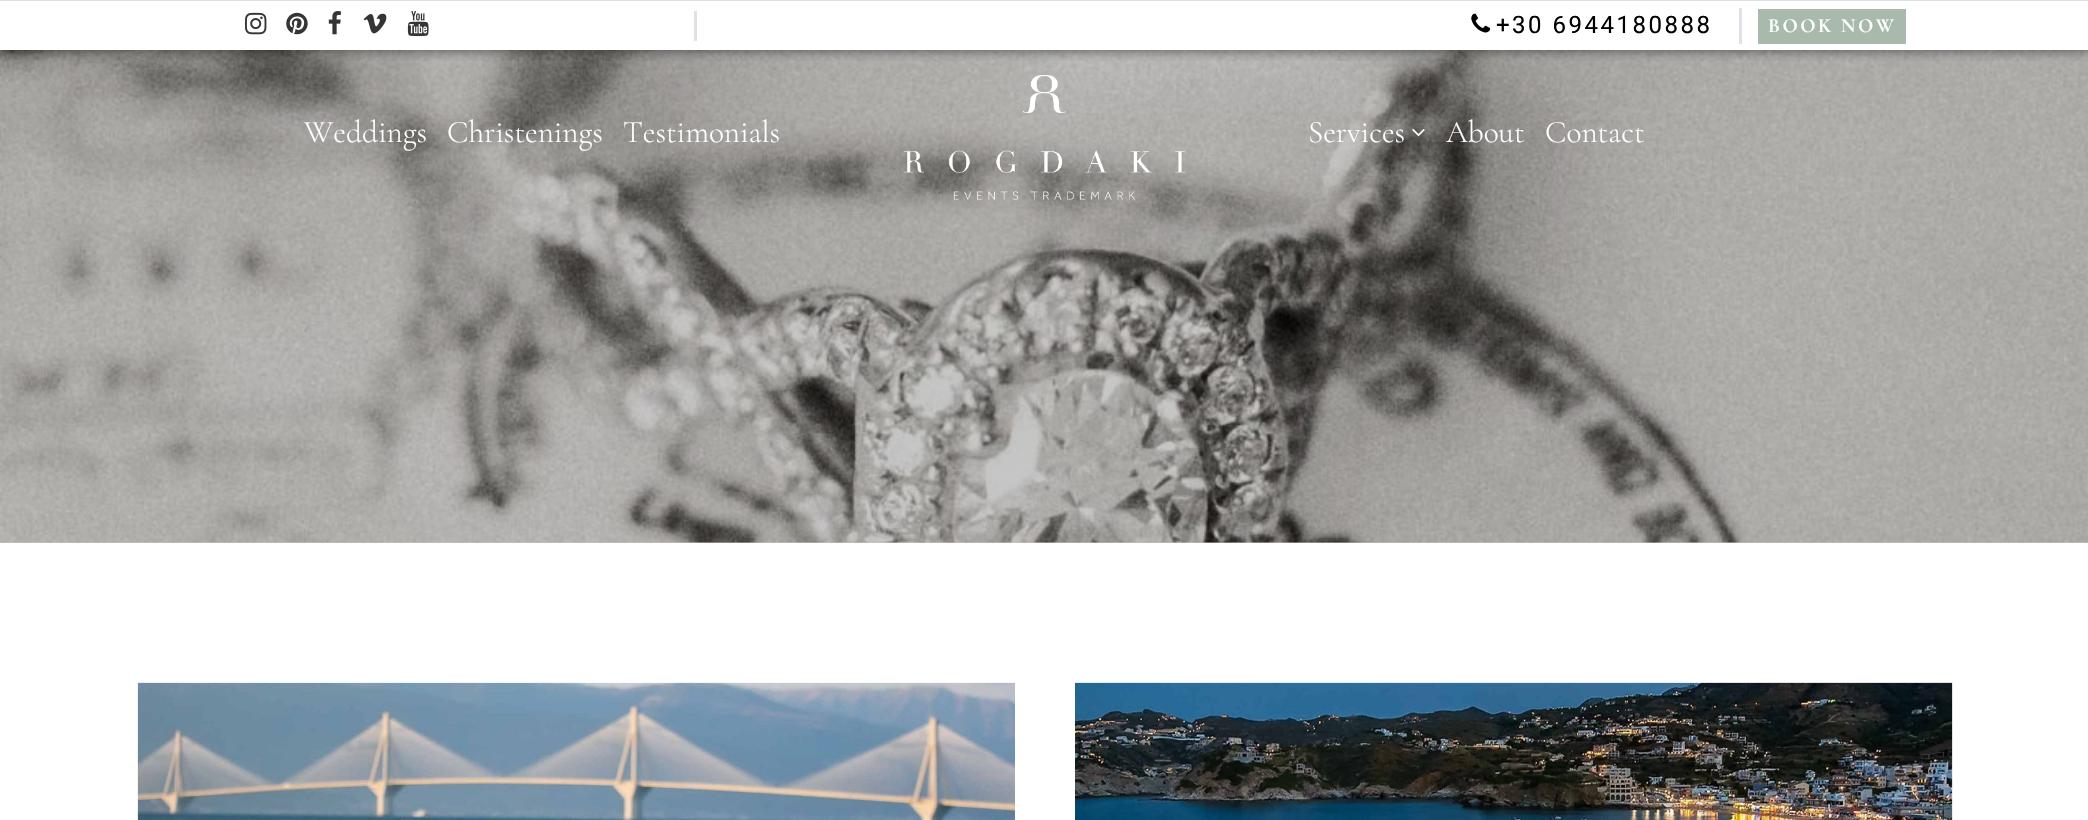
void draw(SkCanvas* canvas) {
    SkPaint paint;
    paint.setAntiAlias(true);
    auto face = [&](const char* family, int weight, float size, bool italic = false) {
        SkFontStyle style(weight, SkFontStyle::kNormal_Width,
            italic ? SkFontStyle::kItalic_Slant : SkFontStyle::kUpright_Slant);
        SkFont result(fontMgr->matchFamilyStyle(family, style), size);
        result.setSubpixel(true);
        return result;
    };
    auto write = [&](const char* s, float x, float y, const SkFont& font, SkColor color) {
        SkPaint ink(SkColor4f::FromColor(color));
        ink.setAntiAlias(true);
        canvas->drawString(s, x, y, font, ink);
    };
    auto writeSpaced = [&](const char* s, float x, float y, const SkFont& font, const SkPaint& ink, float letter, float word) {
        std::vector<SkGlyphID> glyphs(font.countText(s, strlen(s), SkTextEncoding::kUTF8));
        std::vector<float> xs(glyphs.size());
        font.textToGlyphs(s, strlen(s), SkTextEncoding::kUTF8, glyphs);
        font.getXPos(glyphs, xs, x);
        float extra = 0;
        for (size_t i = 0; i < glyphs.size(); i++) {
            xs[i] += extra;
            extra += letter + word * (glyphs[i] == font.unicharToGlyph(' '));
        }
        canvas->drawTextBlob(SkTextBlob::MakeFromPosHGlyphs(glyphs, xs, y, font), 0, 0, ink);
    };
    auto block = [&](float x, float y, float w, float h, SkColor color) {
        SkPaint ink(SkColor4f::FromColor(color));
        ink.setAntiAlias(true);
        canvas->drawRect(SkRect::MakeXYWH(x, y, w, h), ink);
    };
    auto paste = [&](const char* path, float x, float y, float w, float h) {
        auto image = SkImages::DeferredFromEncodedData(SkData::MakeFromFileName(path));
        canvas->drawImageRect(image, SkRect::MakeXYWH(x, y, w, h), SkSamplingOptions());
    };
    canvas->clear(SK_ColorWHITE);
    block(0, 542, 2088, 1, SkColorSetRGB(199, 199, 199));
    paste("pic7.png", 0, 50, 2088, 493);
    canvas->save();
    canvas->clipRect(SkRect::MakeXYWH(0, 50, 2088, 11));
    paint.setColor(SkColorSetARGB(128, 0, 0, 0));
    paint.setMaskFilter(SkMaskFilter::MakeBlur(kNormal_SkBlurStyle, 5.5f));
    canvas->drawRect(SkRect::MakeXYWH(0, 1, 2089, 50), paint);
    paint.setMaskFilter(nullptr);
    canvas->restore();
    block(0, 0, 2088, 1, SkColorSetRGB(222, 226, 230));
    block(694, 11, 3, 30, SkColorSetRGB(222, 226, 230));
    paste("pic1.png", 245, 12, 22, 23);
    paste("pic2.png", 286, 12, 22, 23);
    paste("pic3.png", 328, 11, 13, 24);
    paste("pic4.png", 363, 13, 24, 21);
    paste("pic5.png", 407, 11, 22, 26);
    block(1739, 8, 3, 36, SkColorSetRGB(222, 226, 230));
    paste("pic6.png", 1471, 13, 20, 20);
    auto kFont1 = face("Roboto", 400, 24);
    paint.setColor(SK_ColorBLACK);
    writeSpaced("+30 6944180888", 1496, 33, kFont1, paint, 2.5f, 0);
    block(1758, 9, 148, 35, SkColorSetRGB(168, 186, 171));
    auto kFont2 = face("Cormorant Garamond", 700, 20);
    paint.setColor(SK_ColorWHITE);
    writeSpaced("BOOK NOW", 1768, 32, kFont2, paint, 2.5f, 0);
    auto kFont3 = face("Cormorant Garamond", 300, 31.25f);
    write("Weddings", 304, 142, kFont3, SK_ColorWHITE);
    write("Christenings", 447, 142, kFont3, SK_ColorWHITE);
    write("Testimonials", 623, 142, kFont3, SK_ColorWHITE);
    paste("pic8.png", 903, 75, 282, 125);
    write("Services", 1308, 142, kFont3, SK_ColorWHITE);
    paste("pic9.png", 1412, 129, 13, 8);
    write("About", 1446, 142, kFont3, SK_ColorWHITE);
    write("Contact", 1545, 142, kFont3, SK_ColorWHITE);
    paste("pic10.png", 137, 682, 878, 138);
    paste("pic11.png", 1075, 682, 878, 138);
}
